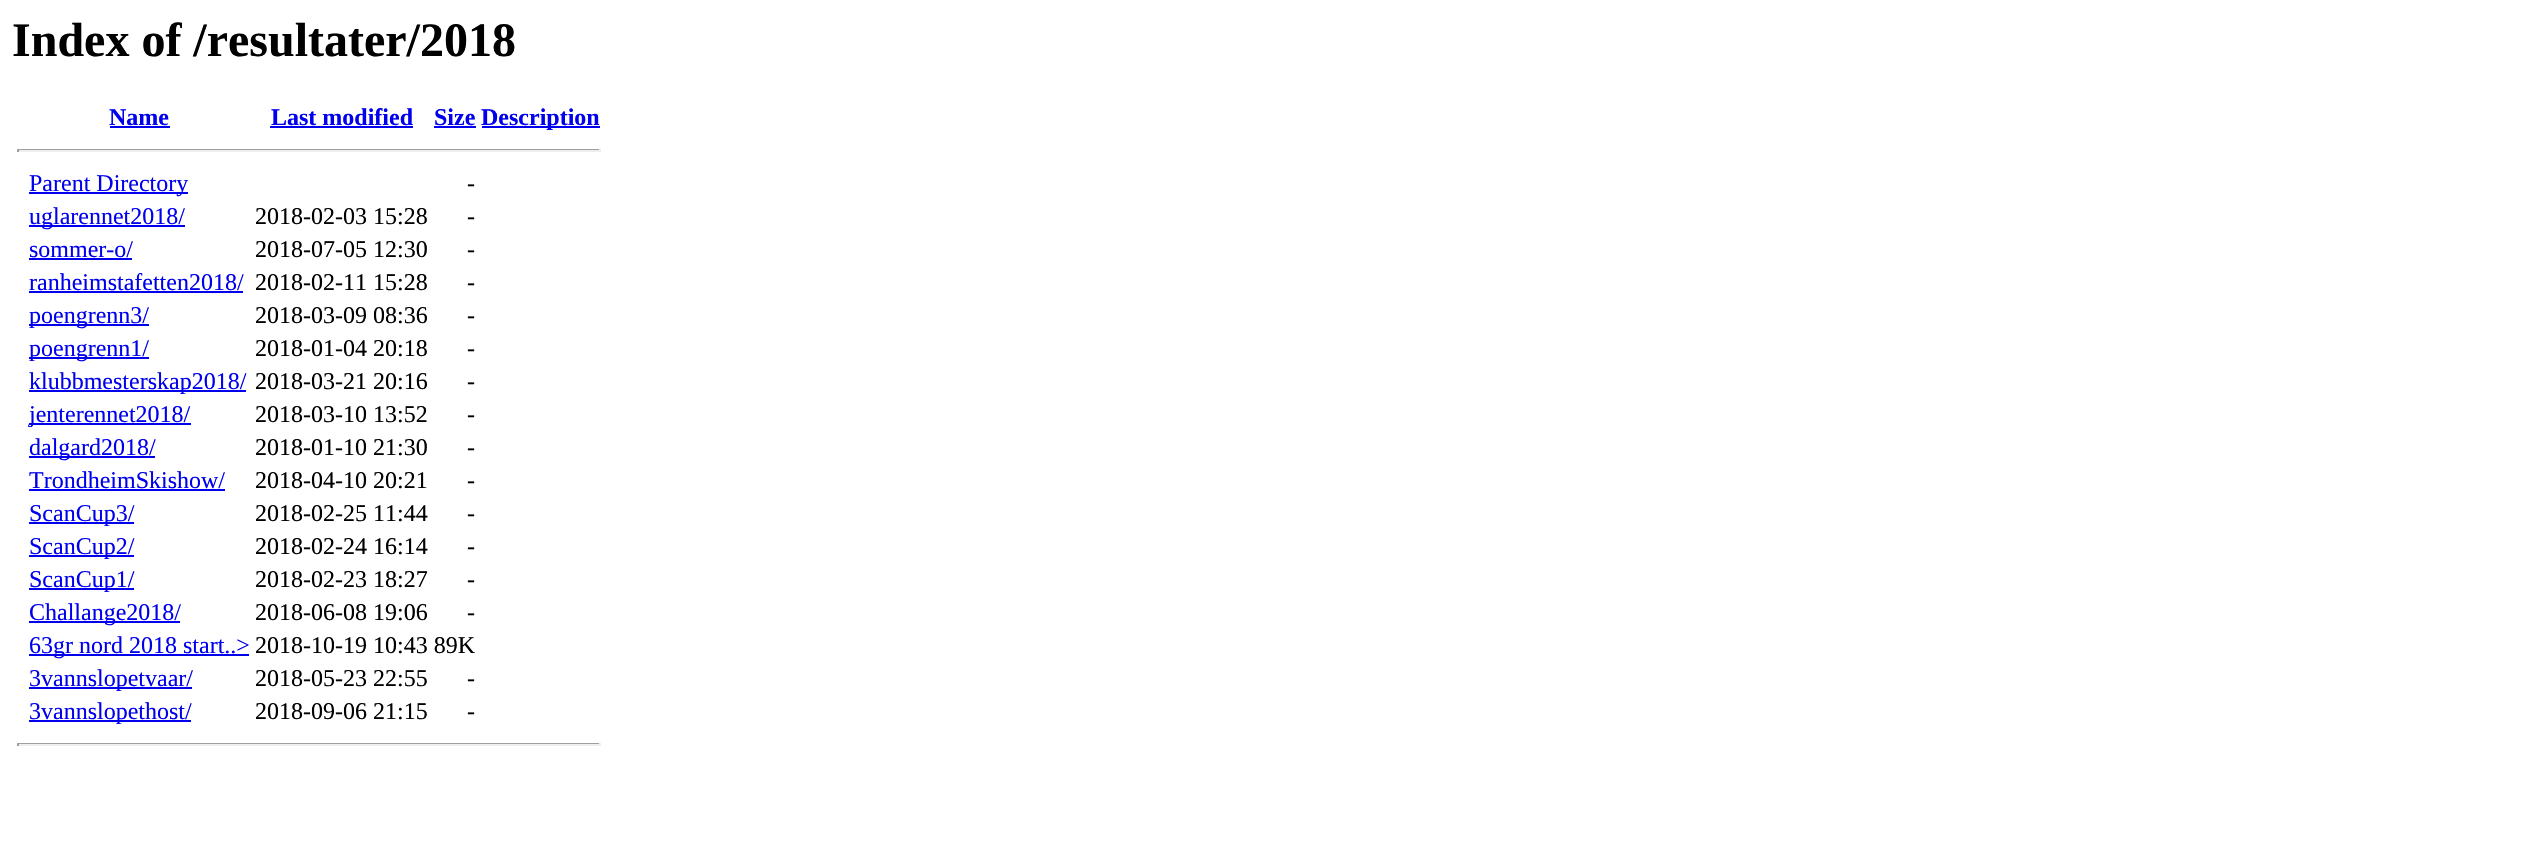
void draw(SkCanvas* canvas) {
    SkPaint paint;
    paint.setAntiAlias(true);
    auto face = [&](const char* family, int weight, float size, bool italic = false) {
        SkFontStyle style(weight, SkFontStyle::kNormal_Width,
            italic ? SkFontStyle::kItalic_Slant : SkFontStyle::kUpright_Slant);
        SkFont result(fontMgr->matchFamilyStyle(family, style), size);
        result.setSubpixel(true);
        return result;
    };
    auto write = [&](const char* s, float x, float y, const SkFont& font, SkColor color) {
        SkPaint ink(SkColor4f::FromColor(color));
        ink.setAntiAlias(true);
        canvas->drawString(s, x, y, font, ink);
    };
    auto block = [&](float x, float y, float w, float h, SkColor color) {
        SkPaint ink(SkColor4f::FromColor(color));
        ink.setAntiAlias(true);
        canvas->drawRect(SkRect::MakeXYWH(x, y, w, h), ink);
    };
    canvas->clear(SK_ColorWHITE);
    auto kFont1 = face("Liberation Serif", 700, 48);
    write("Index of /resultater/2018", 12, 56, kFont1, SK_ColorBLACK);
    auto kFont2 = face("Liberation Serif", 700, 24);
    write("Name", 109, 125, kFont2, SkColorSetRGB(0, 0, 238));
    block(110, 126, 60, 2, SkColorSetRGB(0, 0, 238));
    write("Last modified", 271, 125, kFont2, SkColorSetRGB(0, 0, 238));
    block(270, 126, 143, 2, SkColorSetRGB(0, 0, 238));
    write("Size", 434, 125, kFont2, SkColorSetRGB(0, 0, 238));
    block(434, 126, 42, 2, SkColorSetRGB(0, 0, 238));
    block(482, 126, 118, 2, SkColorSetRGB(0, 0, 238));
    write("Description", 481, 125, kFont2, SkColorSetRGB(0, 0, 238));
    block(17, 149, 583, 1, SkColorSetRGB(159, 159, 159));
    block(599, 149, 2, 3, SkColorSetRGB(238, 238, 238));
    block(17, 150, 583, 2, SkColorSetRGB(238, 238, 238));
    block(17, 149, 2, 3, SkColorSetRGB(159, 159, 159));
    block(29, 192, 159, 2, SkColorSetRGB(0, 0, 238));
    auto kFont3 = face("Liberation Serif", 400, 24);
    write("Parent Directory", 29, 191, kFont3, SkColorSetRGB(0, 0, 238));
    write("-", 467, 191, kFont3, SK_ColorBLACK);
    block(29, 225, 156, 2, SkColorSetRGB(0, 0, 238));
    write("uglarennet2018/", 29, 224, kFont3, SkColorSetRGB(0, 0, 238));
    write("2018-02-03 15:28", 255, 224, kFont3, SK_ColorBLACK);
    write("-", 467, 224, kFont3, SK_ColorBLACK);
    write("sommer-o/", 29, 257, kFont3, SkColorSetRGB(0, 0, 238));
    block(29, 258, 103, 2, SkColorSetRGB(0, 0, 238));
    write("2018-07-05 12:30", 255, 257, kFont3, SK_ColorBLACK);
    write("-", 467, 257, kFont3, SK_ColorBLACK);
    write("ranheimstafetten2018/", 29, 290, kFont3, SkColorSetRGB(0, 0, 238));
    block(29, 291, 214, 2, SkColorSetRGB(0, 0, 238));
    write("2018-02-11 15:28", 255, 290, kFont3, SK_ColorBLACK);
    write("-", 467, 290, kFont3, SK_ColorBLACK);
    block(29, 324, 120, 2, SkColorSetRGB(0, 0, 238));
    write("poengrenn3/", 29, 323, kFont3, SkColorSetRGB(0, 0, 238));
    write("2018-03-09 08:36", 255, 323, kFont3, SK_ColorBLACK);
    write("-", 467, 323, kFont3, SK_ColorBLACK);
    block(29, 357, 120, 2, SkColorSetRGB(0, 0, 238));
    write("poengrenn1/", 29, 356, kFont3, SkColorSetRGB(0, 0, 238));
    write("2018-01-04 20:18", 255, 356, kFont3, SK_ColorBLACK);
    write("-", 467, 356, kFont3, SK_ColorBLACK);
    block(29, 390, 217, 2, SkColorSetRGB(0, 0, 238));
    write("klubbmesterskap2018/", 29, 389, kFont3, SkColorSetRGB(0, 0, 238));
    write("2018-03-21 20:16", 255, 389, kFont3, SK_ColorBLACK);
    write("-", 467, 389, kFont3, SK_ColorBLACK);
    block(29, 423, 162, 2, SkColorSetRGB(0, 0, 238));
    write("jenterennet2018/", 29, 422, kFont3, SkColorSetRGB(0, 0, 238));
    write("2018-03-10 13:52", 255, 422, kFont3, SK_ColorBLACK);
    write("-", 467, 422, kFont3, SK_ColorBLACK);
    block(29, 456, 126, 2, SkColorSetRGB(0, 0, 238));
    write("dalgard2018/", 29, 455, kFont3, SkColorSetRGB(0, 0, 238));
    write("2018-01-10 21:30", 255, 455, kFont3, SK_ColorBLACK);
    write("-", 467, 455, kFont3, SK_ColorBLACK);
    write("TrondheimSkishow/", 29, 488, kFont3, SkColorSetRGB(0, 0, 238));
    block(29, 489, 196, 2, SkColorSetRGB(0, 0, 238));
    write("2018-04-10 20:21", 255, 488, kFont3, SK_ColorBLACK);
    write("-", 467, 488, kFont3, SK_ColorBLACK);
    block(29, 522, 105, 2, SkColorSetRGB(0, 0, 238));
    write("ScanCup3/", 29, 521, kFont3, SkColorSetRGB(0, 0, 238));
    write("2018-02-25 11:44", 255, 521, kFont3, SK_ColorBLACK);
    write("-", 467, 521, kFont3, SK_ColorBLACK);
    block(29, 555, 105, 2, SkColorSetRGB(0, 0, 238));
    write("ScanCup2/", 29, 554, kFont3, SkColorSetRGB(0, 0, 238));
    write("2018-02-24 16:14", 255, 554, kFont3, SK_ColorBLACK);
    write("-", 467, 554, kFont3, SK_ColorBLACK);
    block(29, 588, 105, 2, SkColorSetRGB(0, 0, 238));
    write("ScanCup1/", 29, 587, kFont3, SkColorSetRGB(0, 0, 238));
    write("2018-02-23 18:27", 255, 587, kFont3, SK_ColorBLACK);
    write("-", 467, 587, kFont3, SK_ColorBLACK);
    block(29, 621, 151, 2, SkColorSetRGB(0, 0, 238));
    write("Challange2018/", 29, 620, kFont3, SkColorSetRGB(0, 0, 238));
    write("2018-06-08 19:06", 255, 620, kFont3, SK_ColorBLACK);
    write("-", 467, 620, kFont3, SK_ColorBLACK);
    block(29, 654, 220, 2, SkColorSetRGB(0, 0, 238));
    write("63gr nord 2018 start..>", 29, 653, kFont3, SkColorSetRGB(0, 0, 238));
    write("2018-10-19 10:43 89K", 255, 653, kFont3, SK_ColorBLACK);
    block(29, 687, 163, 2, SkColorSetRGB(0, 0, 238));
    write("3vannslopetvaar/", 29, 686, kFont3, SkColorSetRGB(0, 0, 238));
    write("2018-05-23 22:55", 255, 686, kFont3, SK_ColorBLACK);
    write("-", 467, 686, kFont3, SK_ColorBLACK);
    block(29, 720, 162, 2, SkColorSetRGB(0, 0, 238));
    write("3vannslopethost/", 29, 719, kFont3, SkColorSetRGB(0, 0, 238));
    write("2018-09-06 21:15", 255, 719, kFont3, SK_ColorBLACK);
    write("-", 467, 719, kFont3, SK_ColorBLACK);
    block(17, 743, 583, 1, SkColorSetRGB(159, 159, 159));
    block(599, 743, 2, 3, SkColorSetRGB(238, 238, 238));
    block(17, 744, 583, 2, SkColorSetRGB(238, 238, 238));
    block(17, 743, 2, 3, SkColorSetRGB(159, 159, 159));
}
